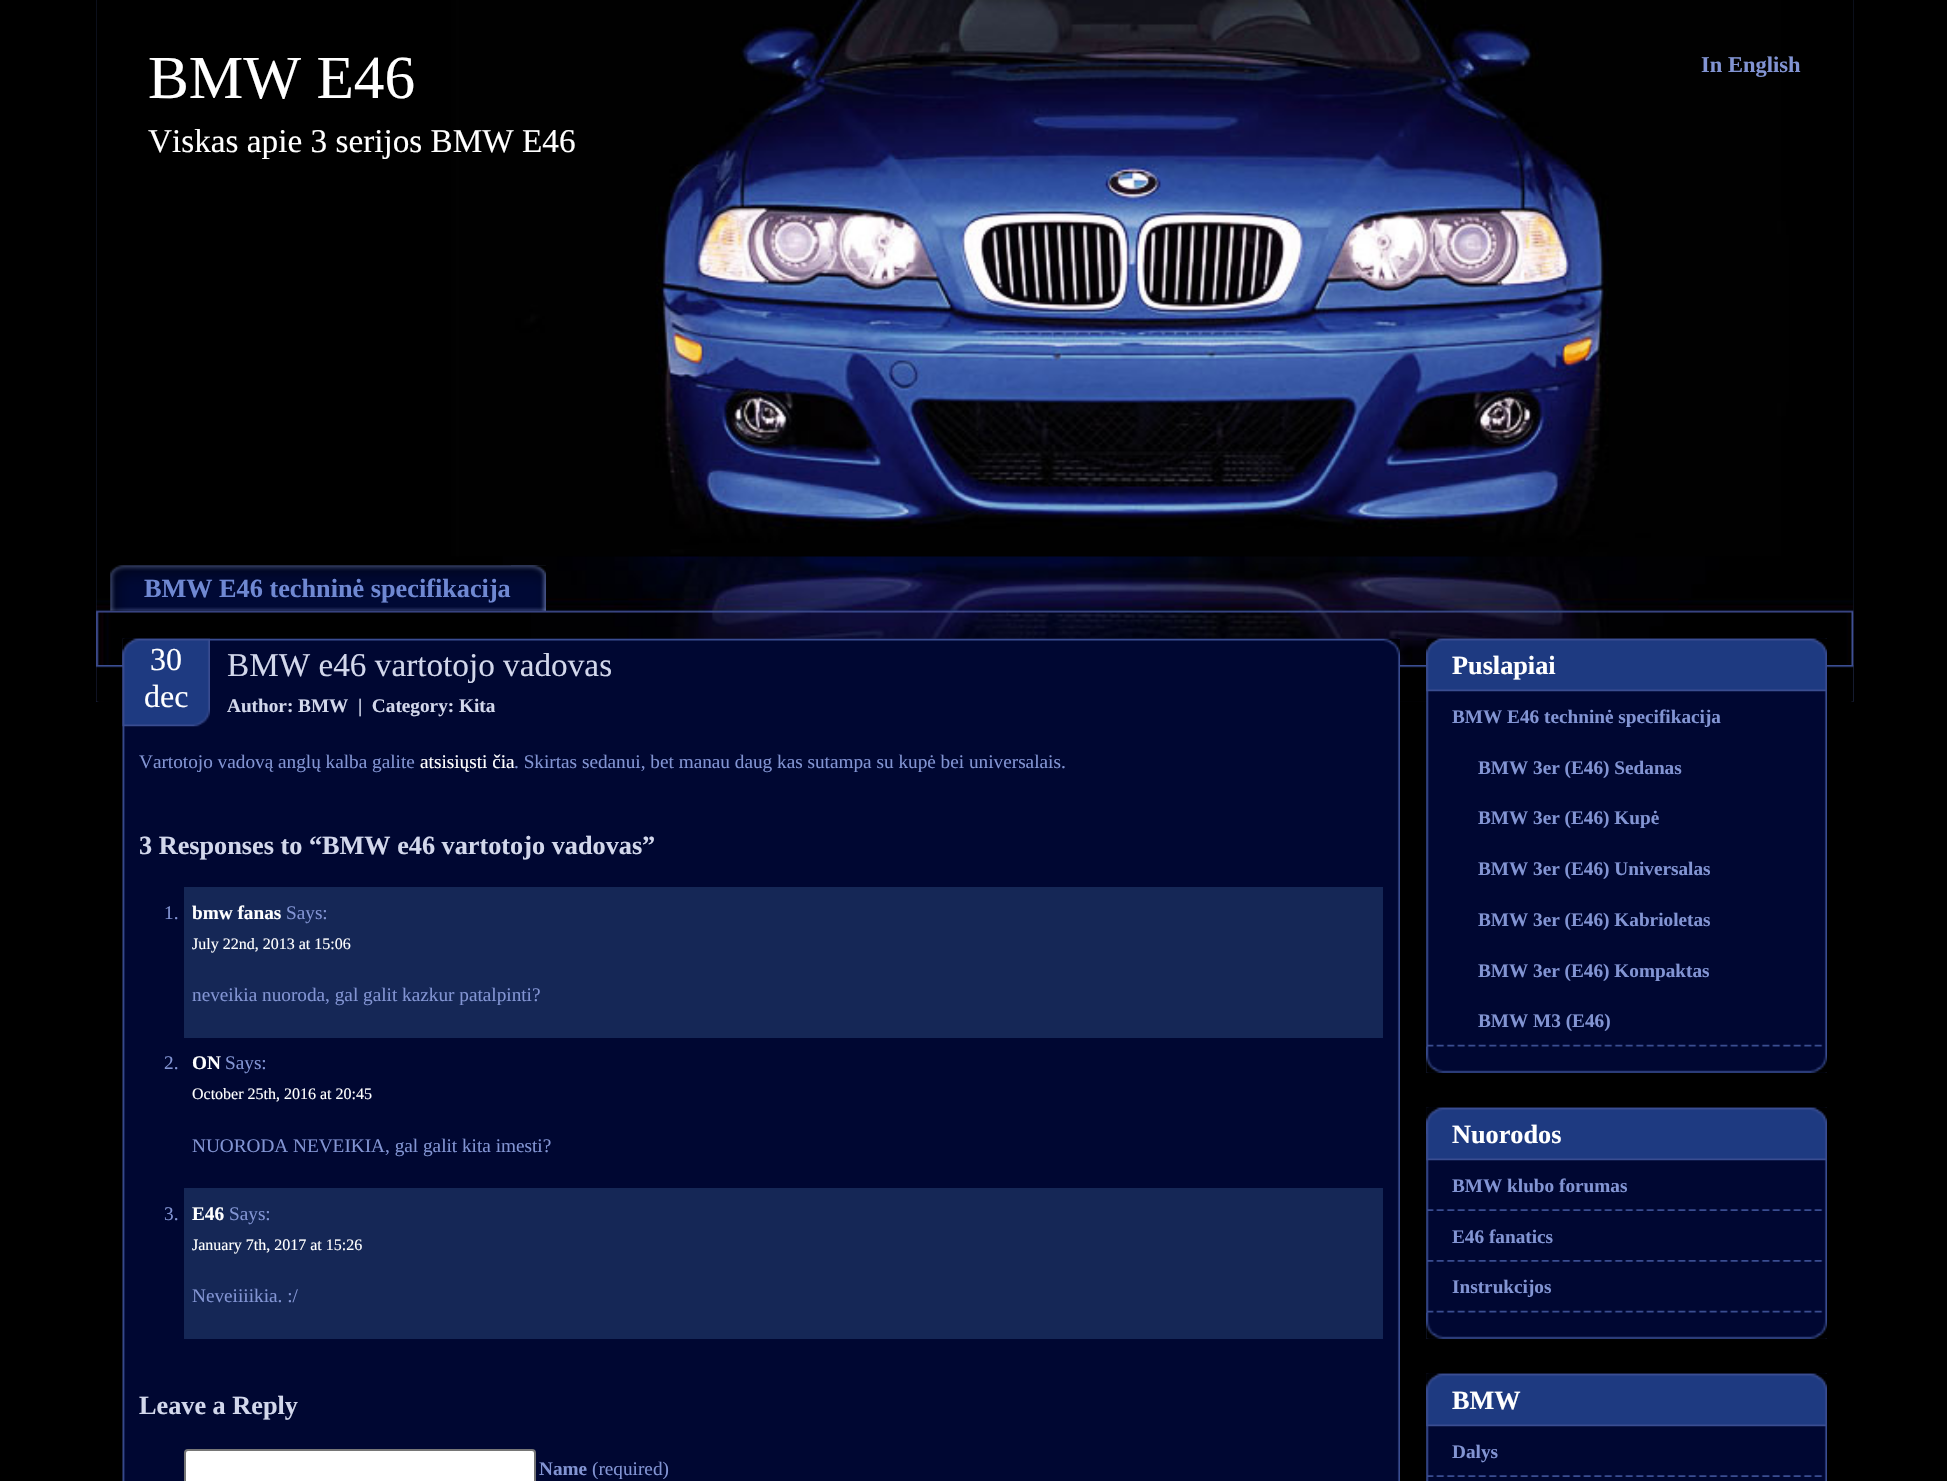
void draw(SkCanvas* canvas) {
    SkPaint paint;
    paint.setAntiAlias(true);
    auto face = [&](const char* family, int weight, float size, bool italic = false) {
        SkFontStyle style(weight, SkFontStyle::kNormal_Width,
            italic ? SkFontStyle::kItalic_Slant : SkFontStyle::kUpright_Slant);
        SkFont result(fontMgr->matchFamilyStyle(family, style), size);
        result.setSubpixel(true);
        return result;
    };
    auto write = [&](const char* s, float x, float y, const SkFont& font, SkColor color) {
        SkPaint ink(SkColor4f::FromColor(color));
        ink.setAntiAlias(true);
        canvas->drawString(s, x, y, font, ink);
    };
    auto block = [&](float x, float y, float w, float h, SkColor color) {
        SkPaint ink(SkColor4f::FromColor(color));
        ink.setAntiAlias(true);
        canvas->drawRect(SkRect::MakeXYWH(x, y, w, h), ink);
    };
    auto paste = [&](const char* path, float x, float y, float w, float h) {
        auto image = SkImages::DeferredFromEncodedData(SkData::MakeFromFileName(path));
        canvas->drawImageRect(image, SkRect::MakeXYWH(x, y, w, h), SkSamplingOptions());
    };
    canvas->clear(SK_ColorBLACK);
    paste("pic1.png", 96, 0, 1758, 702);
    paste("pic2.png", 96, 0, 1758, 702);
    paste("pic3.png", 96, 665, 1758, 37);
    auto kFont1 = face("Liberation Serif", 400, 61.25f);
    write("BMW E46", 148, 98, kFont1, SK_ColorWHITE);
    auto kFont2 = face("Liberation Serif", 400, 33.25f);
    write("Viskas apie 3 serijos BMW E46", 148, 152, kFont2, SK_ColorWHITE);
    auto kFont3 = face("Liberation Serif", 700, 22.5f);
    write("In English", 1701, 72, kFont3, SkColorSetRGB(130, 148, 211));
    paste("pic4.png", 110, 565, 436, 46);
    paste("pic5.png", 511, 565, 35, 46);
    auto kFont4 = face("Liberation Serif", 700, 26.25f);
    write("BMW E46 techninė specifikacija", 144, 597, kFont4, SkColorSetRGB(111, 136, 210));
    paste("pic6.png", 122, 638, 1278, 843);
    paste("pic7.png", 122, 638, 1278, 27);
    paste("pic8.png", 122, 638, 88, 89);
    auto kFont5 = face("Liberation Serif", 400, 32);
    write("30", 150, 670, kFont5, SK_ColorWHITE);
    write("dec", 144, 707, kFont5, SK_ColorWHITE);
    write("BMW e46 vartotojo vadovas", 227, 676, kFont2, SkColorSetRGB(210, 215, 235));
    auto kFont6 = face("Liberation Serif", 700, 19.25f);
    write("Author: BMW  |  Category: Kita", 227, 712, kFont6, SkColorSetRGB(210, 215, 235));
    auto kFont7 = face("Liberation Serif", 400, 19.25f);
    write("Vartotojo vadovą anglų kalba galite", 139, 768, kFont7, SkColorSetRGB(130, 148, 211));
    write("atsisiųsti čia", 420, 768, kFont7, SK_ColorWHITE);
    write(". Skirtas sedanui, bet manau daug kas sutampa su kupė bei universalais.", 514, 768, kFont7, SkColorSetRGB(130, 148, 211));
    write("3 Responses to “BMW e46 vartotojo vadovas”", 139, 854, kFont4, SkColorSetRGB(210, 215, 235));
    block(184, 887, 1199, 151, SkColorSetRGB(21, 39, 86));
    write("1.", 164, 919, kFont7, SkColorSetRGB(130, 148, 211));
    write("bmw fanas", 192, 919, kFont6, SK_ColorWHITE);
    write("Says:", 286, 919, kFont7, SkColorSetRGB(130, 148, 211));
    auto kFont8 = face("Liberation Serif", 400, 16);
    write("July 22nd, 2013 at 15:06", 192, 949, kFont8, SK_ColorWHITE);
    write("neveikia nuoroda, gal galit kazkur patalpinti?", 192, 1001, kFont7, SkColorSetRGB(130, 148, 211));
    write("2.", 164, 1069, kFont7, SkColorSetRGB(130, 148, 211));
    write("ON", 192, 1069, kFont6, SK_ColorWHITE);
    write("Says:", 225, 1069, kFont7, SkColorSetRGB(130, 148, 211));
    write("October 25th, 2016 at 20:45", 192, 1099, kFont8, SK_ColorWHITE);
    write("NUORODA NEVEIKIA, gal galit kita imesti?", 192, 1152, kFont7, SkColorSetRGB(130, 148, 211));
    block(184, 1188, 1199, 151, SkColorSetRGB(21, 39, 86));
    write("3.", 164, 1220, kFont7, SkColorSetRGB(130, 148, 211));
    write("E46", 192, 1220, kFont6, SK_ColorWHITE);
    write("Says:", 229, 1220, kFont7, SkColorSetRGB(130, 148, 211));
    write("January 7th, 2017 at 15:26", 192, 1250, kFont8, SK_ColorWHITE);
    write("Neveiiiikia. :/", 192, 1302, kFont7, SkColorSetRGB(130, 148, 211));
    write("Leave a Reply", 139, 1414, kFont4, SkColorSetRGB(210, 215, 235));
    paint.setColor(SK_ColorWHITE);
    canvas->drawRoundRect(SkRect::MakeXYWH(185, 1450, 350, 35), 3, 3, paint);
    paint.setStyle(SkPaint::kStroke_Style);
    paint.setStrokeWidth(2);
    paint.setColor(SkColorSetRGB(118, 118, 118));
    canvas->drawRoundRect(SkRect::MakeXYWH(185, 1450, 350, 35), 3, 3, paint);
    write("Name", 539, 1475, kFont6, SkColorSetRGB(130, 148, 211));
    write("(required)", 592, 1475, kFont7, SkColorSetRGB(130, 148, 211));
    paste("pic9.png", 1426, 638, 401, 435);
    paste("pic10.png", 1426, 638, 401, 27);
    paste("pic11.png", 1426, 1046, 401, 27);
    paste("pic12.png", 1426, 638, 401, 54);
    write("Puslapiai", 1452, 674, kFont4, SK_ColorWHITE);
    paste("pic13.png", 1426, 1044, 397, 3);
    write("BMW E46 techninė specifikacija", 1452, 723, kFont6, SkColorSetRGB(130, 148, 211));
    write("BMW 3er (E46) Sedanas", 1478, 774, kFont6, SkColorSetRGB(130, 148, 211));
    write("BMW 3er (E46) Kupė", 1478, 824, kFont6, SkColorSetRGB(130, 148, 211));
    write("BMW 3er (E46) Universalas", 1478, 875, kFont6, SkColorSetRGB(130, 148, 211));
    write("BMW 3er (E46) Kabrioletas", 1478, 926, kFont6, SkColorSetRGB(130, 148, 211));
    write("BMW 3er (E46) Kompaktas", 1478, 977, kFont6, SkColorSetRGB(130, 148, 211));
    write("BMW M3 (E46)", 1478, 1027, kFont6, SkColorSetRGB(130, 148, 211));
    paste("pic14.png", 1426, 1107, 401, 232);
    paste("pic15.png", 1426, 1107, 401, 27);
    paste("pic11.png", 1426, 1312, 401, 27);
    paste("pic16.png", 1426, 1107, 401, 54);
    write("Nuorodos", 1452, 1143, kFont4, SK_ColorWHITE);
    paste("pic17.png", 1426, 1209, 397, 2);
    write("BMW klubo forumas", 1452, 1192, kFont6, SkColorSetRGB(130, 148, 211));
    paste("pic18.png", 1426, 1260, 397, 2);
    write("E46 fanatics", 1452, 1243, kFont6, SkColorSetRGB(130, 148, 211));
    paste("pic13.png", 1426, 1310, 397, 3);
    write("Instrukcijos", 1452, 1293, kFont6, SkColorSetRGB(130, 148, 211));
    paste("pic19.png", 1426, 1373, 401, 108);
    paste("pic15.png", 1426, 1373, 401, 27);
    paste("pic16.png", 1426, 1373, 401, 54);
    write("BMW", 1452, 1409, kFont4, SK_ColorWHITE);
    paste("pic17.png", 1426, 1475, 397, 2);
    write("Dalys", 1452, 1458, kFont6, SkColorSetRGB(130, 148, 211));
}
